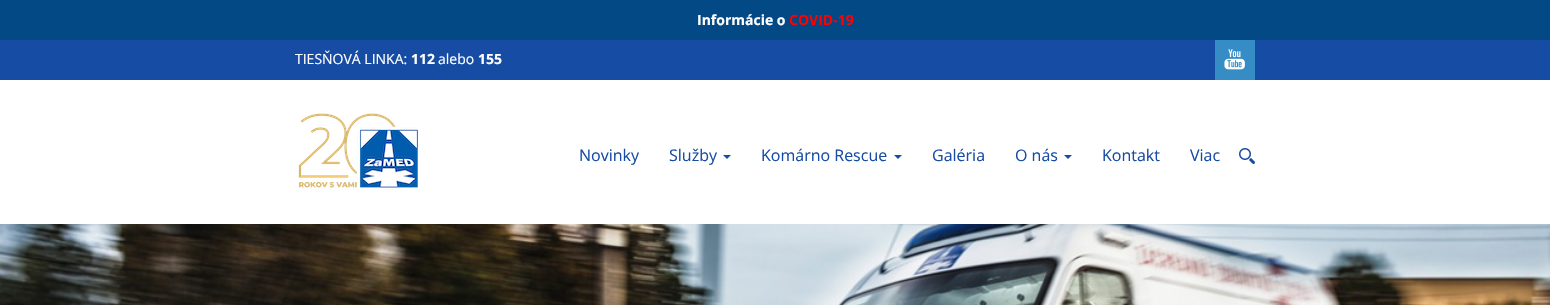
void draw(SkCanvas* canvas) {
    SkPaint paint;
    paint.setAntiAlias(true);
    auto face = [&](const char* family, int weight, float size, bool italic = false) {
        SkFontStyle style(weight, SkFontStyle::kNormal_Width,
            italic ? SkFontStyle::kItalic_Slant : SkFontStyle::kUpright_Slant);
        SkFont result(fontMgr->matchFamilyStyle(family, style), size);
        result.setSubpixel(true);
        return result;
    };
    auto write = [&](const char* s, float x, float y, const SkFont& font, SkColor color) {
        SkPaint ink(SkColor4f::FromColor(color));
        ink.setAntiAlias(true);
        canvas->drawString(s, x, y, font, ink);
    };
    auto block = [&](float x, float y, float w, float h, SkColor color) {
        SkPaint ink(SkColor4f::FromColor(color));
        ink.setAntiAlias(true);
        canvas->drawRect(SkRect::MakeXYWH(x, y, w, h), ink);
    };
    auto paste = [&](const char* path, float x, float y, float w, float h) {
        auto image = SkImages::DeferredFromEncodedData(SkData::MakeFromFileName(path));
        canvas->drawImageRect(image, SkRect::MakeXYWH(x, y, w, h), SkSamplingOptions());
    };
    canvas->clear(SK_ColorWHITE);
    block(0, 0, 1550, 40, SkColorSetRGB(2, 73, 133));
    auto kFont1 = face("Open Sans", 700, 14);
    write("Informácie o", 697, 25, kFont1, SK_ColorWHITE);
    write("COVID-19", 789, 25, kFont1, SkColorSetRGB(255, 0, 0));
    block(0, 40, 1550, 40, SkColorSetRGB(22, 76, 163));
    auto kFont2 = face("Open Sans", 400, 14);
    write("TIESŇOVÁ LINKA:", 295, 64, kFont2, SK_ColorWHITE);
    write("112", 411, 64, kFont1, SK_ColorWHITE);
    write("alebo", 438, 64, kFont2, SK_ColorWHITE);
    write("155", 478, 64, kFont1, SK_ColorWHITE);
    paste("pic1.png", 1215, 40, 40, 40);
    paste("pic2.png", 296, 111, 122, 79);
    auto kFont3 = face("Open Sans", 400, 16);
    write("Novinky", 579, 161, kFont3, SkColorSetRGB(22, 76, 163));
    write("Služby", 669, 161, kFont3, SkColorSetRGB(22, 76, 163));
    paint.setColor(SkColorSetRGB(22, 76, 163));
    canvas->drawPath(SkPathBuilder().moveTo(723, 155).lineTo(731, 155).lineTo(727, 159).close().detach(), paint);
    write("Komárno Rescue", 761, 161, kFont3, SkColorSetRGB(22, 76, 163));
    canvas->drawPath(SkPathBuilder().moveTo(894, 155).lineTo(902, 155).lineTo(898, 159).close().detach(), paint);
    write("Galéria", 932, 161, kFont3, SkColorSetRGB(22, 76, 163));
    write("O nás", 1015, 161, kFont3, SkColorSetRGB(22, 76, 163));
    canvas->drawPath(SkPathBuilder().moveTo(1064, 155).lineTo(1072, 155).lineTo(1068, 159).close().detach(), paint);
    write("Kontakt", 1102, 161, kFont3, SkColorSetRGB(22, 76, 163));
    write("Viac", 1190, 161, kFont3, SkColorSetRGB(22, 76, 163));
    paste("pic3.png", 1239, 148, 16, 16);
    paste("pic4.png", 0, 224, 1550, 81);
}
